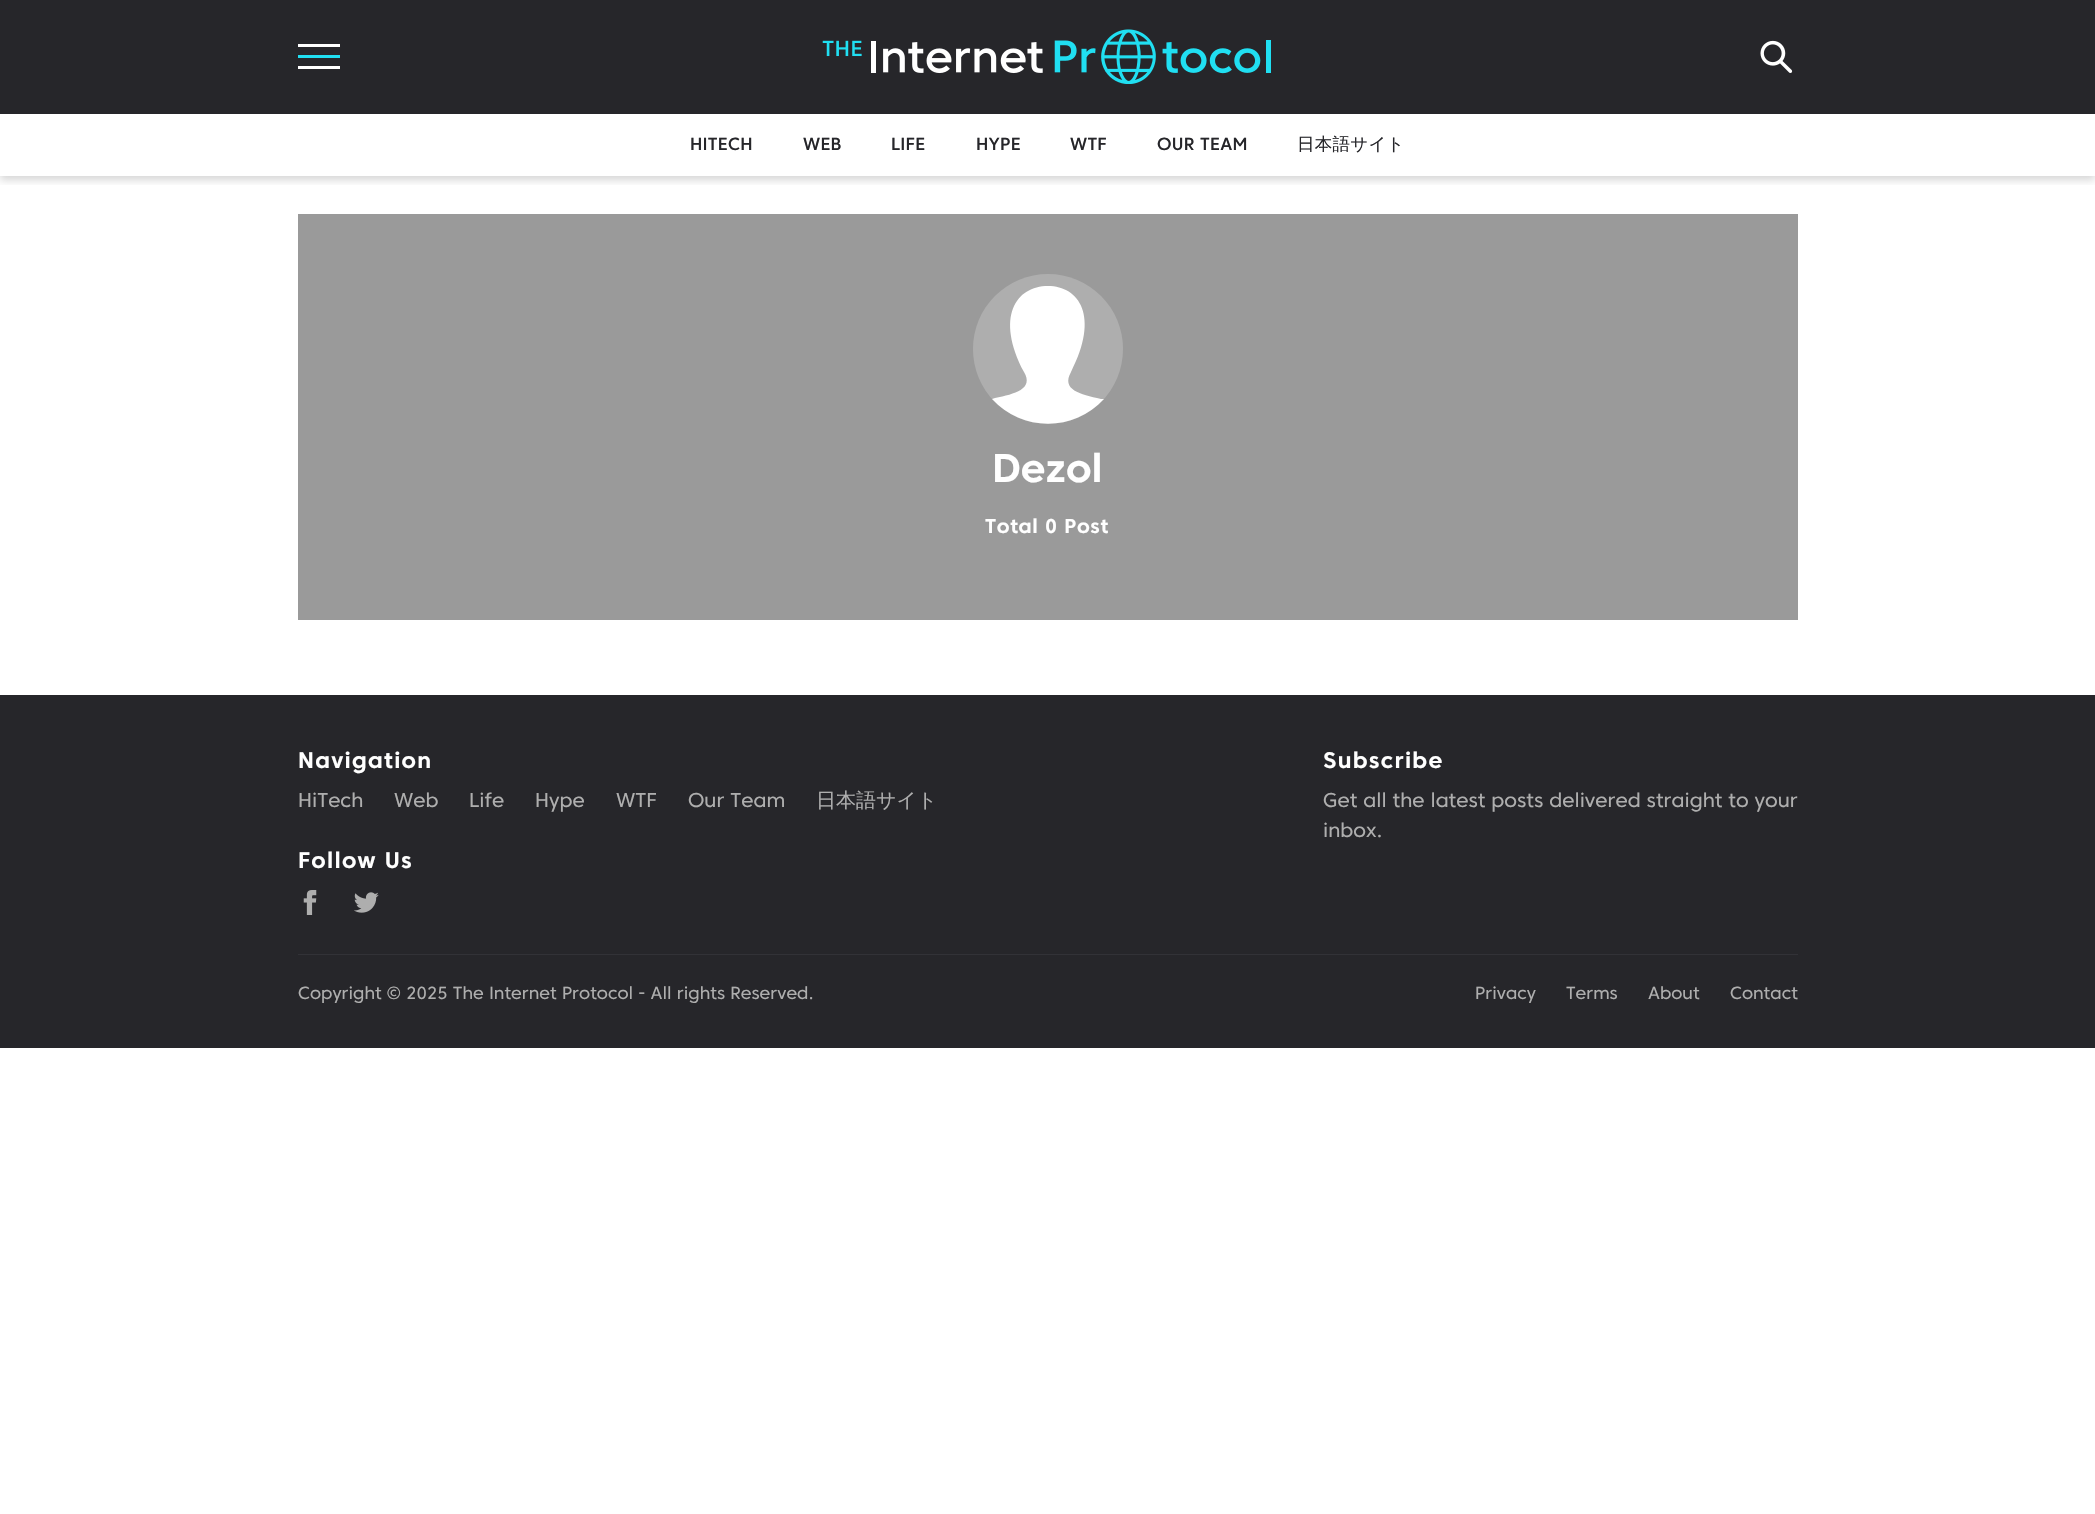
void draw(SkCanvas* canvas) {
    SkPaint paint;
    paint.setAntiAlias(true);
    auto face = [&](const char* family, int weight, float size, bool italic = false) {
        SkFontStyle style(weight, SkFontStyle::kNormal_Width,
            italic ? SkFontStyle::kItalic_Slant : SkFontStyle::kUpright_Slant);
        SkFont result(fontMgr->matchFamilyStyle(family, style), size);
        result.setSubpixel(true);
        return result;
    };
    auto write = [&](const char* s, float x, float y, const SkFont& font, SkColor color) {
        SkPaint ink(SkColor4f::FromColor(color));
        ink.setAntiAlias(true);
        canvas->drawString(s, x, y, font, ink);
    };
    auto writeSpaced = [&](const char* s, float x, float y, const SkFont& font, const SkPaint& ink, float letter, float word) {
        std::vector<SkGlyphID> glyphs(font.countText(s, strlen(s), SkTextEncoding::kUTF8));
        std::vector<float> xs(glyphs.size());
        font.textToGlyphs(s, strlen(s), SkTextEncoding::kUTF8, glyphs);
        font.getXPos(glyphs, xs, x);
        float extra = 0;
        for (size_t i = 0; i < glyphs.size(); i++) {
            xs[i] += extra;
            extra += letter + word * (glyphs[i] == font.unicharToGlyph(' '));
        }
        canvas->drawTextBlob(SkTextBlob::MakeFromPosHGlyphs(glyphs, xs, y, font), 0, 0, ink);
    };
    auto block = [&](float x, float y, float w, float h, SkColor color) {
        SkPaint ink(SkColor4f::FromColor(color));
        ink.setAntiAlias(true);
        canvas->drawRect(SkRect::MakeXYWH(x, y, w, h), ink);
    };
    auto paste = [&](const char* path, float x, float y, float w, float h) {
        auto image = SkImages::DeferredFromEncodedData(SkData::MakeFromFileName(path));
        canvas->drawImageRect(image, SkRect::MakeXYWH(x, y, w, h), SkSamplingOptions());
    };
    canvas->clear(SK_ColorWHITE);
    block(0, 0, 2095, 114, SkColorSetRGB(38, 38, 42));
    block(298, 44, 42, 3, SK_ColorWHITE);
    block(298, 55, 42, 3, SkColorSetRGB(32, 223, 242));
    block(298, 66, 42, 3, SK_ColorWHITE);
    paste("pic1.png", 822, 29, 449, 55);
    paste("pic2.png", 1760, 40, 33, 33);
    canvas->save();
    canvas->clipRect(SkRect::MakeXYWH(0, 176, 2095, 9));
    paint.setColor(SkColorSetARGB(41, 0, 0, 0));
    paint.setMaskFilter(SkMaskFilter::MakeBlur(kNormal_SkBlurStyle, 4));
    canvas->drawRect(SkRect::MakeXYWH(0, 118, 2095, 62), paint);
    paint.setMaskFilter(nullptr);
    canvas->restore();
    auto kFont1 = face("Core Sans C", 500, 17.5f);
    paint.setColor(SkColorSetRGB(38, 38, 42));
    writeSpaced("HITECH", 690, 150, kFont1, paint, 0.25f, 0);
    writeSpaced("WEB", 803, 150, kFont1, paint, 0.25f, 0);
    writeSpaced("LIFE", 891, 150, kFont1, paint, 0.25f, 0);
    writeSpaced("HYPE", 976, 150, kFont1, paint, 0.25f, 0);
    writeSpaced("WTF", 1070, 150, kFont1, paint, 0.25f, 0);
    writeSpaced("OUR TEAM", 1157, 150, kFont1, paint, 0.25f, 0);
    auto kFont2 = face("WenQuanYi Zen Hei", 500, 17.5f);
    writeSpaced("日本語サイト", 1297, 150, kFont2, paint, 0.25f, 0);
    block(298, 214, 1500, 406, SkColorSetRGB(154, 154, 154));
    paint.setColor(SkColorSetRGB(174, 174, 174));
    canvas->drawCircle(1048, 349, 75, paint);
    paint.setColor(SK_ColorWHITE);
    canvas->drawPath(SkPathBuilder().moveTo(1103, 399).lineTo(1104, 399).cubicTo(1074, 432, 1022, 432, 992, 399).lineTo(995, 398).cubicTo(1015, 394, 1034, 389, 1024, 372).cubicTo(995, 317, 1016, 286, 1048, 286).cubicTo(1079, 286, 1100, 316, 1071, 372).cubicTo(1061, 390, 1080, 394, 1101, 399).close().detach(), paint);
    auto kFont3 = face("Core Sans C", 700, 40);
    write("Dezol", 992, 482, kFont3, SK_ColorWHITE);
    auto kFont4 = face("Core Sans C", 700, 20);
    writeSpaced("Total 0 Post", 985, 533, kFont4, paint, 0.6f, 0);
    block(0, 695, 2095, 353, SkColorSetRGB(38, 38, 42));
    auto kFont5 = face("Core Sans C", 700, 22.5f);
    writeSpaced("Navigation", 298, 768, kFont5, paint, 1.25f, 0);
    auto kFont6 = face("Core Sans C", 400, 20);
    write("HiTech", 298, 807, kFont6, SkColorSetRGB(174, 174, 174));
    write("Web", 394, 807, kFont6, SkColorSetRGB(174, 174, 174));
    write("Life", 469, 807, kFont6, SkColorSetRGB(174, 174, 174));
    write("Hype", 535, 807, kFont6, SkColorSetRGB(174, 174, 174));
    write("WTF", 616, 807, kFont6, SkColorSetRGB(174, 174, 174));
    write("Our Team", 688, 807, kFont6, SkColorSetRGB(174, 174, 174));
    auto kFont7 = face("WenQuanYi Zen Hei", 500, 20);
    write("日本語サイト", 816, 807, kFont7, SkColorSetRGB(174, 174, 174));
    writeSpaced("Follow Us", 298, 868, kFont5, paint, 1.25f, 0);
    paste("pic3.png", 303, 890, 14, 25);
    paste("pic4.png", 354, 892, 25, 21);
    writeSpaced("Subscribe", 1323, 768, kFont5, paint, 1.25f, 0);
    write("Get all the latest posts delivered straight to your", 1323, 807, kFont6, SkColorSetRGB(174, 174, 174));
    write("inbox.", 1323, 837, kFont6, SkColorSetRGB(174, 174, 174));
    block(298, 954, 1500, 1, SkColorSetRGB(50, 50, 55));
    auto kFont8 = face("Core Sans C", 400, 17.5f);
    write("Copyright © 2025 The Internet Protocol - All rights Reserved.", 298, 999, kFont8, SkColorSetRGB(174, 174, 174));
    write("Privacy", 1475, 999, kFont8, SkColorSetRGB(174, 174, 174));
    write("Terms", 1566, 999, kFont8, SkColorSetRGB(174, 174, 174));
    write("About", 1648, 999, kFont8, SkColorSetRGB(174, 174, 174));
    write("Contact", 1730, 999, kFont8, SkColorSetRGB(174, 174, 174));
}
